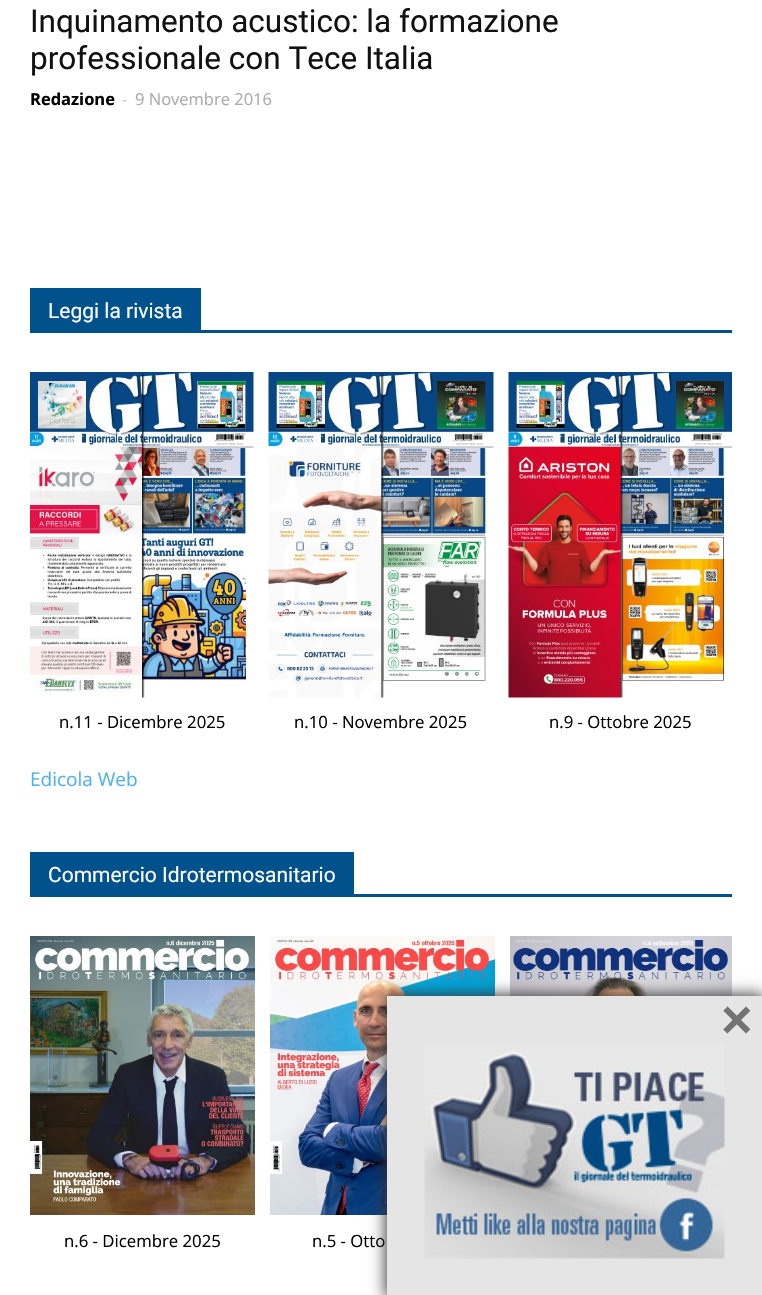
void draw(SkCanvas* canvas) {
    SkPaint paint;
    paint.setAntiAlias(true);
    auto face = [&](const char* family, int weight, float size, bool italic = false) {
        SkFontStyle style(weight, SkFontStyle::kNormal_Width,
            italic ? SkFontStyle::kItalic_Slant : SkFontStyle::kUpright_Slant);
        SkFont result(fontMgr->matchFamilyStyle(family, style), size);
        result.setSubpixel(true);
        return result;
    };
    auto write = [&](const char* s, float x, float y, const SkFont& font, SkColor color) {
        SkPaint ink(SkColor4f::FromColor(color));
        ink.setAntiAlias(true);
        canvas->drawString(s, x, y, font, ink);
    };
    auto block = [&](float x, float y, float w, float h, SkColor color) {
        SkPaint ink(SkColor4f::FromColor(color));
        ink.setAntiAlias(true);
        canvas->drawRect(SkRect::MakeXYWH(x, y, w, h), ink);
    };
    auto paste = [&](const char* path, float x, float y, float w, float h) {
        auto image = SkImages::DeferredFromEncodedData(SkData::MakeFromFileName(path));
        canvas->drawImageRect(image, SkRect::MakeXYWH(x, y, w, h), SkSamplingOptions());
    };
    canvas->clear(SK_ColorWHITE);
    auto kFont1 = face("Roboto", 400, 31.5f);
    write("Inquinamento acustico: la formazione", 30, 32, kFont1, SkColorSetRGB(17, 17, 17));
    write("professionale con Tece Italia", 30, 69, kFont1, SkColorSetRGB(17, 17, 17));
    auto kFont2 = face("Open Sans", 700, 16.5f);
    write("Redazione", 30, 105, kFont2, SK_ColorBLACK);
    auto kFont3 = face("Open Sans", 400, 16.5f);
    write("-", 122, 105, kFont3, SkColorSetRGB(204, 204, 204));
    write("9 Novembre 2016", 135, 105, kFont3, SkColorSetRGB(170, 170, 170));
    block(30, 330, 702, 3, SkColorSetRGB(0, 81, 140));
    block(30, 288, 171, 42, SkColorSetRGB(0, 81, 140));
    auto kFont4 = face("Roboto", 400, 21);
    write("Leggi la rivista", 48, 318, kFont4, SK_ColorWHITE);
    paste("pic1.png", 30, 372, 224, 326);
    auto kFont5 = face("Open Sans", 400, 16.75f);
    write("n.11 - Dicembre 2025", 59, 728, kFont5, SK_ColorBLACK);
    paste("pic2.png", 268, 372, 226, 326);
    write("n.10 - Novembre 2025", 294, 728, kFont5, SK_ColorBLACK);
    paste("pic3.png", 508, 372, 224, 326);
    write("n.9 - Ottobre 2025", 549, 728, kFont5, SK_ColorBLACK);
    auto kFont6 = face("Open Sans", 400, 19);
    write("Edicola Web", 30, 786, kFont6, SkColorSetRGB(77, 178, 236));
    block(30, 894, 702, 3, SkColorSetRGB(0, 81, 140));
    block(30, 852, 324, 42, SkColorSetRGB(0, 81, 140));
    write("Commercio Idrotermosanitario", 48, 882, kFont4, SK_ColorWHITE);
    paste("pic4.png", 510, 936, 222, 60);
    paste("pic5.png", 30, 936, 225, 279);
    write("n.6 - Dicembre 2025", 64, 1247, kFont5, SK_ColorBLACK);
    paste("pic6.png", 270, 936, 225, 279);
    write("n.5 - Otto", 312, 1247, kFont5, SK_ColorBLACK);
    paint.setColor(SkColorSetRGB(51, 51, 51));
    paint.setMaskFilter(SkMaskFilter::MakeBlur(kNormal_SkBlurStyle, 7.5f));
    canvas->drawRect(SkRect::MakeXYWH(386, 995, 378, 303), paint);
    paint.setMaskFilter(nullptr);
    block(387, 996, 375, 299, SkColorSetRGB(229, 229, 229));
    auto kFont7 = face("Liberation Sans", 700, 54);
    write("×", 721, 1038, kFont7, SkColorSetRGB(115, 115, 115));
    paste("pic7.png", 424, 1045, 301, 214);
}
